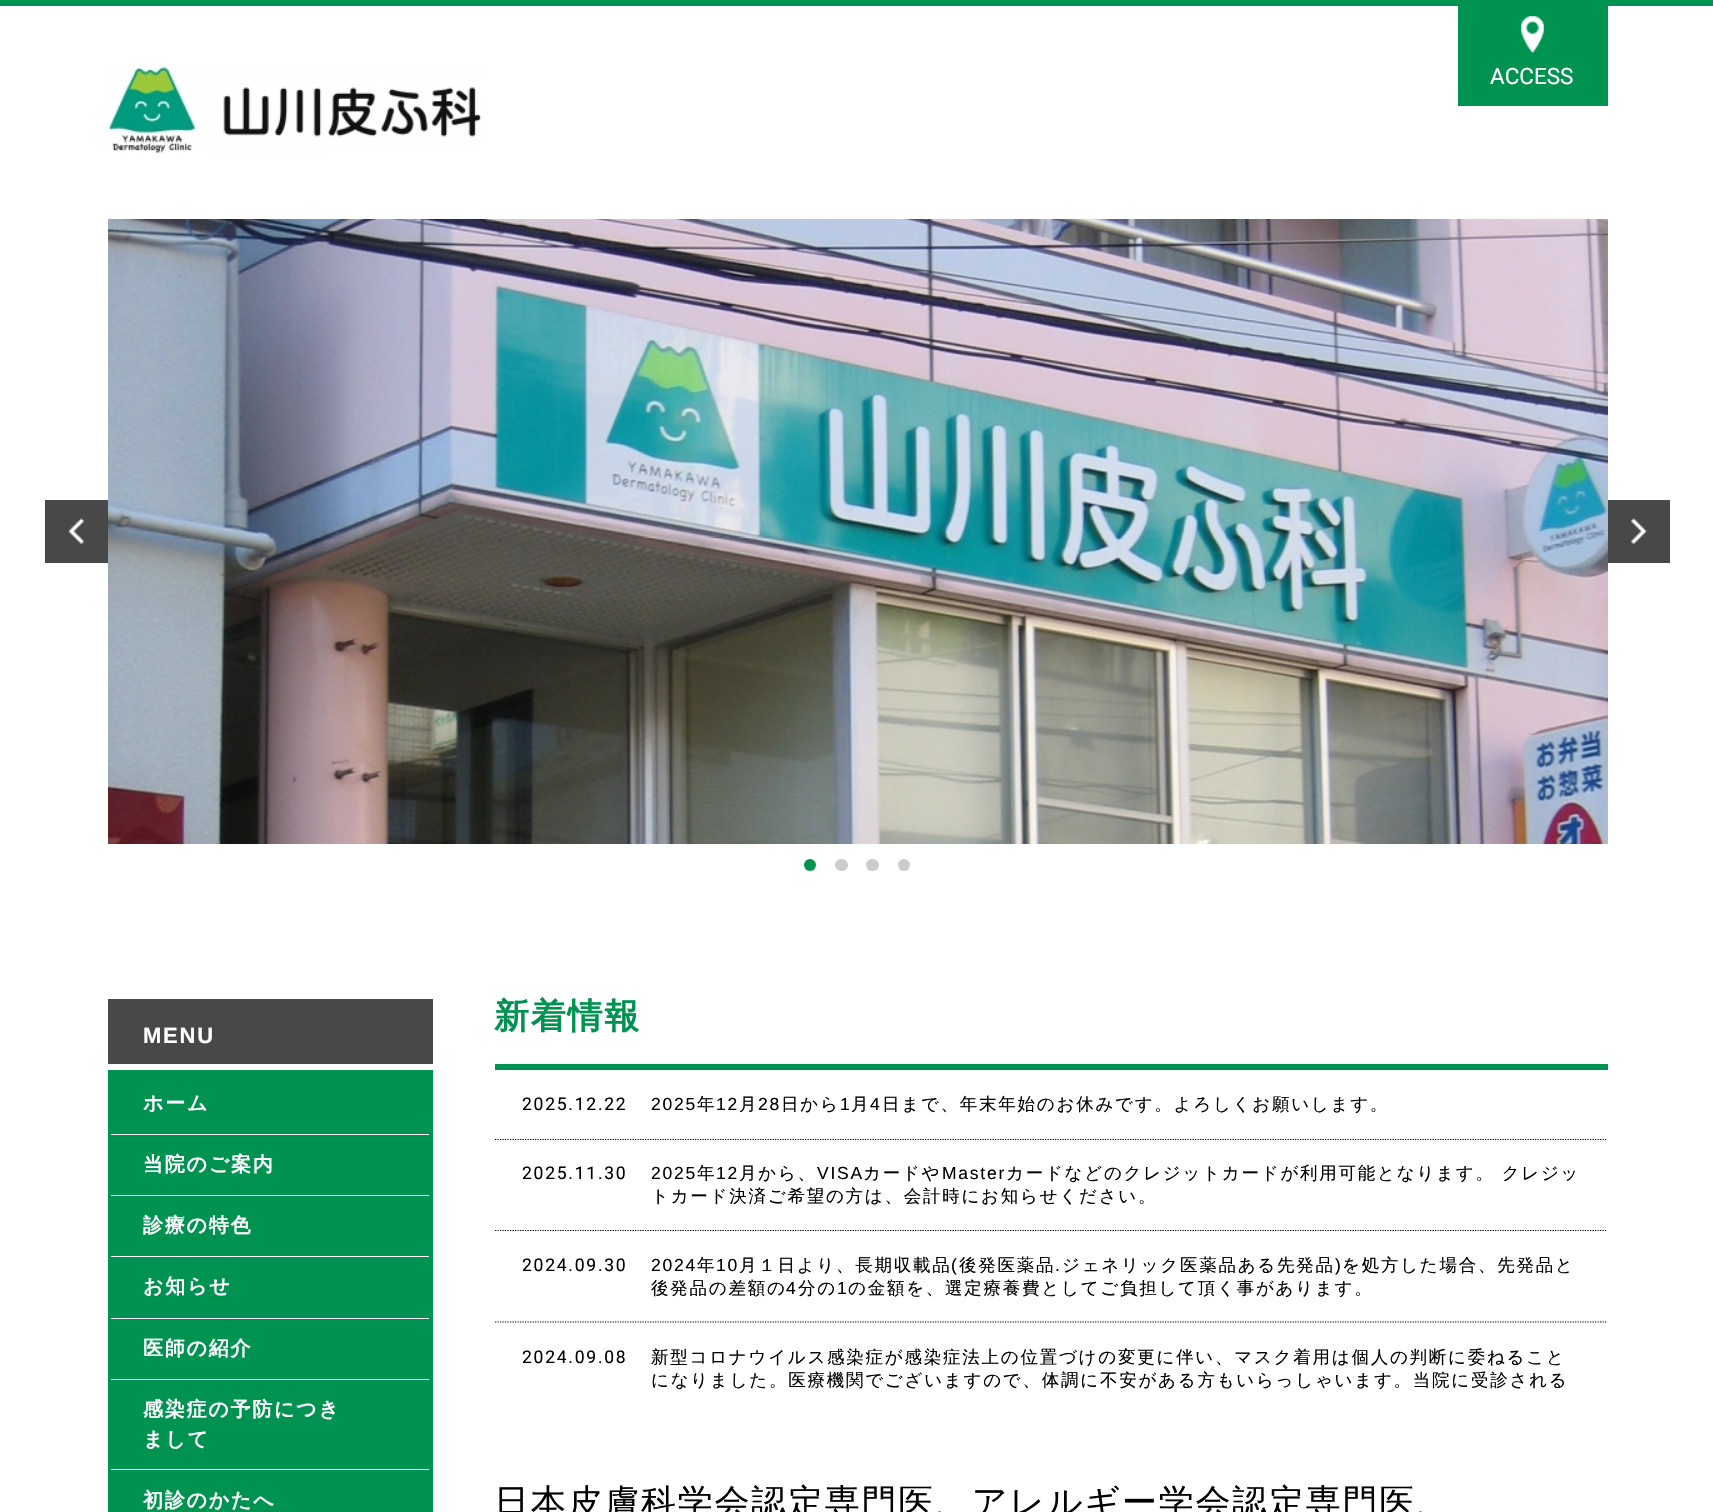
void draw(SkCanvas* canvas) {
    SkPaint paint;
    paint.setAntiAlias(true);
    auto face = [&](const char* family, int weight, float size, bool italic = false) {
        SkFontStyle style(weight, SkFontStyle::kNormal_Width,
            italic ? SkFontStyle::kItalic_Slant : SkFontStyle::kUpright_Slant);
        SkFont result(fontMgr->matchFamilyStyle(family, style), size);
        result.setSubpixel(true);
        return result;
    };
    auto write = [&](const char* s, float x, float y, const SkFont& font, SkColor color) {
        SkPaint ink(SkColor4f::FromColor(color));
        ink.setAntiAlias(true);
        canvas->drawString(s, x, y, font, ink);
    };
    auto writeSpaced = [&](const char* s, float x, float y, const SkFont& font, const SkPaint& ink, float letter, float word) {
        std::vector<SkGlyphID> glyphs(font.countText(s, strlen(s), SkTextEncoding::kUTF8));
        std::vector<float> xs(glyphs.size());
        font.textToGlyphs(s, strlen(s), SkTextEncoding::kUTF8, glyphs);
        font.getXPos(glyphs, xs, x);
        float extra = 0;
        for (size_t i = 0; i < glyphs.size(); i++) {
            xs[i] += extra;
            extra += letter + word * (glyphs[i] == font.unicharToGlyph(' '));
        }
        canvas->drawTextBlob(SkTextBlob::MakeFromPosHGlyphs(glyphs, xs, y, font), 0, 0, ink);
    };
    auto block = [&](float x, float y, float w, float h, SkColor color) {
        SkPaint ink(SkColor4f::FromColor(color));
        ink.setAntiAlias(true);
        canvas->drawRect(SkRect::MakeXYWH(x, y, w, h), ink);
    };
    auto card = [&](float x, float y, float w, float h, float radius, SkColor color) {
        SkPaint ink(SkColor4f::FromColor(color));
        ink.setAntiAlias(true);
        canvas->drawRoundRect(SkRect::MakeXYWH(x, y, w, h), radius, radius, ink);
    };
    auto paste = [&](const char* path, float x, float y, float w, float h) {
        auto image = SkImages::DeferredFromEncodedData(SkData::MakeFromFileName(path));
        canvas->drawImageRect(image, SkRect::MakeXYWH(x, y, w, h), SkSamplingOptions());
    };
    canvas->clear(SK_ColorWHITE);
    block(0, 0, 1713, 6, SkColorSetRGB(0, 146, 80));
    paste("pic1.png", 108, 66, 374, 87);
    block(1458, 6, 150, 100, SkColorSetRGB(0, 146, 80));
    paste("pic2.png", 1521, 16, 23, 37);
    auto kFont1 = face("Roboto", 400, 22.5f);
    write("ACCESS", 1490, 84, kFont1, SK_ColorWHITE);
    paste("pic3.png", 108, 219, 1500, 625);
    block(45, 500, 63, 63, SkColorSetRGB(72, 72, 72));
    paste("pic4.png", 68, 518, 16, 26);
    block(1608, 500, 62, 63, SkColorSetRGB(72, 72, 72));
    paste("pic5.png", 1631, 518, 16, 26);
    paint.setColor(SkColorSetRGB(0, 146, 80));
    canvas->drawCircle(810, 865, 6, paint);
    card(835, 859, 13, 12, 6, SkColorSetRGB(204, 204, 204));
    card(866, 859, 13, 12, 6, SkColorSetRGB(204, 204, 204));
    paint.setColor(SkColorSetRGB(204, 204, 204));
    canvas->drawCircle(904, 865, 6, paint);
    block(108, 999, 325, 65, SkColorSetRGB(72, 72, 72));
    auto kFont2 = face("Liberation Sans", 700, 22);
    paint.setColor(SK_ColorWHITE);
    writeSpaced("MENU", 143, 1043, kFont2, paint, 1.75f, 0);
    block(108, 1070, 325, 442, SkColorSetRGB(0, 146, 80));
    block(111, 1134, 318, 1, SK_ColorWHITE);
    auto kFont3 = face("WenQuanYi Zen Hei", 700, 20);
    writeSpaced("ホーム", 143, 1110, kFont3, paint, 1.75f, 0);
    block(111, 1195, 318, 1, SK_ColorWHITE);
    writeSpaced("当院のご案内", 143, 1171, kFont3, paint, 1.75f, 0);
    block(111, 1256, 318, 1, SK_ColorWHITE);
    writeSpaced("診療の特色", 143, 1232, kFont3, paint, 1.75f, 0);
    block(111, 1318, 318, 1, SK_ColorWHITE);
    writeSpaced("お知らせ", 143, 1293, kFont3, paint, 1.75f, 0);
    block(111, 1379, 318, 1, SK_ColorWHITE);
    writeSpaced("医師の紹介", 143, 1355, kFont3, paint, 1.75f, 0);
    block(111, 1469, 318, 1, SK_ColorWHITE);
    writeSpaced("感染症の予防につき", 143, 1416, kFont3, paint, 1.75f, 0);
    writeSpaced("まして", 143, 1446, kFont3, paint, 1.75f, 0);
    writeSpaced("初診のかたへ", 143, 1507, kFont3, paint, 1.75f, 0);
    block(495, 1064, 1113, 6, SkColorSetRGB(0, 146, 80));
    auto kFont4 = face("WenQuanYi Zen Hei", 700, 35);
    paint.setColor(SkColorSetRGB(0, 146, 80));
    writeSpaced("新着情報", 494, 1028, kFont4, paint, 1.75f, 0);
    paint.setStyle(SkPaint::kStroke_Style);
    paint.setStrokeWidth(1.2f);
    paint.setColor(SK_ColorBLACK);
    paint.setPathEffect(SkDashPathEffect::Make({{1.25f, 1.25f}}, 0));
    canvas->drawPath(SkPathBuilder().moveTo(495, 1139.5f).lineTo(1607.5f, 1139.5f).detach(), paint);
    paint.setPathEffect(nullptr);
    auto kFont5 = face("Roboto", 400, 17.5f);
    paint.setStyle(SkPaint::kFill_Style);
    writeSpaced("2025.12.22", 522, 1110, kFont5, paint, 1.75f, 0);
    auto kFont6 = face("Liberation Sans", 400, 17.5f);
    writeSpaced("2025", 651, 1110, kFont6, paint, 1.75f, 0);
    auto kFont7 = face("WenQuanYi Zen Hei", 500, 17.5f);
    writeSpaced("年", 697, 1110, kFont7, paint, 1.75f, 0);
    writeSpaced("12", 716, 1110, kFont6, paint, 1.75f, 0);
    writeSpaced("月", 739, 1110, kFont7, paint, 1.75f, 0);
    writeSpaced("28", 758, 1110, kFont6, paint, 1.75f, 0);
    writeSpaced("日から", 781, 1110, kFont7, paint, 1.75f, 0);
    writeSpaced("1", 840, 1110, kFont6, paint, 1.75f, 0);
    writeSpaced("月", 851, 1110, kFont7, paint, 1.75f, 0);
    writeSpaced("4", 870, 1110, kFont6, paint, 1.75f, 0);
    writeSpaced("日まで、年末年始のお休みです。よろしくお願いします。", 882, 1110, kFont7, paint, 1.75f, 0);
    paint.setStyle(SkPaint::kStroke_Style);
    paint.setPathEffect(SkDashPathEffect::Make({{1.25f, 1.25f}}, 0));
    canvas->drawPath(SkPathBuilder().moveTo(495, 1230.5f).lineTo(1607.5f, 1230.5f).detach(), paint);
    paint.setPathEffect(nullptr);
    paint.setStyle(SkPaint::kFill_Style);
    writeSpaced("2025.11.30", 522, 1179, kFont5, paint, 1.75f, 0);
    writeSpaced("2025", 651, 1179, kFont6, paint, 1.75f, 0);
    writeSpaced("年", 697, 1179, kFont7, paint, 1.75f, 0);
    writeSpaced("12", 716, 1179, kFont6, paint, 1.75f, 0);
    writeSpaced("月から、", 739, 1179, kFont7, paint, 1.75f, 0);
    writeSpaced("VISA", 817, 1179, kFont6, paint, 1.75f, 0);
    writeSpaced("カードや", 863, 1179, kFont7, paint, 1.75f, 0);
    writeSpaced("Master", 942, 1179, kFont6, paint, 1.75f, 0);
    writeSpaced("カードなどのクレジットカードが利用可能となります。 クレジッ", 1006, 1179, kFont7, paint, 1.75f, 0);
    writeSpaced("トカード決済ご希望の方は、会計時にお知らせください。", 651, 1202, kFont7, paint, 1.75f, 0);
    paint.setStyle(SkPaint::kStroke_Style);
    paint.setPathEffect(SkDashPathEffect::Make({{1.25f, 1.25f}}, 0));
    canvas->drawPath(SkPathBuilder().moveTo(495, 1322).lineTo(1607.5f, 1322).detach(), paint);
    paint.setPathEffect(nullptr);
    paint.setStyle(SkPaint::kFill_Style);
    writeSpaced("2024.09.30", 522, 1271, kFont5, paint, 1.75f, 0);
    writeSpaced("2024", 651, 1271, kFont6, paint, 1.75f, 0);
    writeSpaced("年", 697, 1271, kFont7, paint, 1.75f, 0);
    writeSpaced("10", 716, 1271, kFont6, paint, 1.75f, 0);
    writeSpaced("月１日より、長期収載品", 739, 1271, kFont7, paint, 1.75f, 0);
    writeSpaced("(", 951, 1271, kFont6, paint, 1.75f, 0);
    writeSpaced("後発医薬品", 959, 1271, kFont7, paint, 1.75f, 0);
    writeSpaced(".", 1055, 1271, kFont6, paint, 1.75f, 0);
    writeSpaced("ジェネリック医薬品ある先発品", 1062, 1271, kFont7, paint, 1.75f, 0);
    writeSpaced(")", 1335, 1271, kFont6, paint, 1.75f, 0);
    writeSpaced("を処方した場合、先発品と", 1342, 1271, kFont7, paint, 1.75f, 0);
    writeSpaced("後発品の差額の", 651, 1294, kFont7, paint, 1.75f, 0);
    writeSpaced("4", 786, 1294, kFont6, paint, 1.75f, 0);
    writeSpaced("分の", 798, 1294, kFont7, paint, 1.75f, 0);
    writeSpaced("1", 837, 1294, kFont6, paint, 1.75f, 0);
    writeSpaced("の金額を、選定療養費としてご負担して頂く事があります。", 848, 1294, kFont7, paint, 1.75f, 0);
    writeSpaced("2024.09.08", 522, 1363, kFont5, paint, 1.75f, 0);
    writeSpaced("新型コロナウイルス感染症が感染症法上の位置づけの変更に伴い、マスク着用は個人の判断に委ねること", 651, 1363, kFont7, paint, 1.75f, 0);
    writeSpaced("になりました。医療機関でございますので、体調に不安がある方もいらっしゃいます。当院に受診される", 651, 1386, kFont7, paint, 1.75f, 0);
    auto kFont8 = face("WenQuanYi Zen Hei", 500, 35);
    writeSpaced("日本皮膚科学会認定専門医、アレルギー学会認定専門医、", 494, 1514, kFont8, paint, 1.75f, 0);
}
